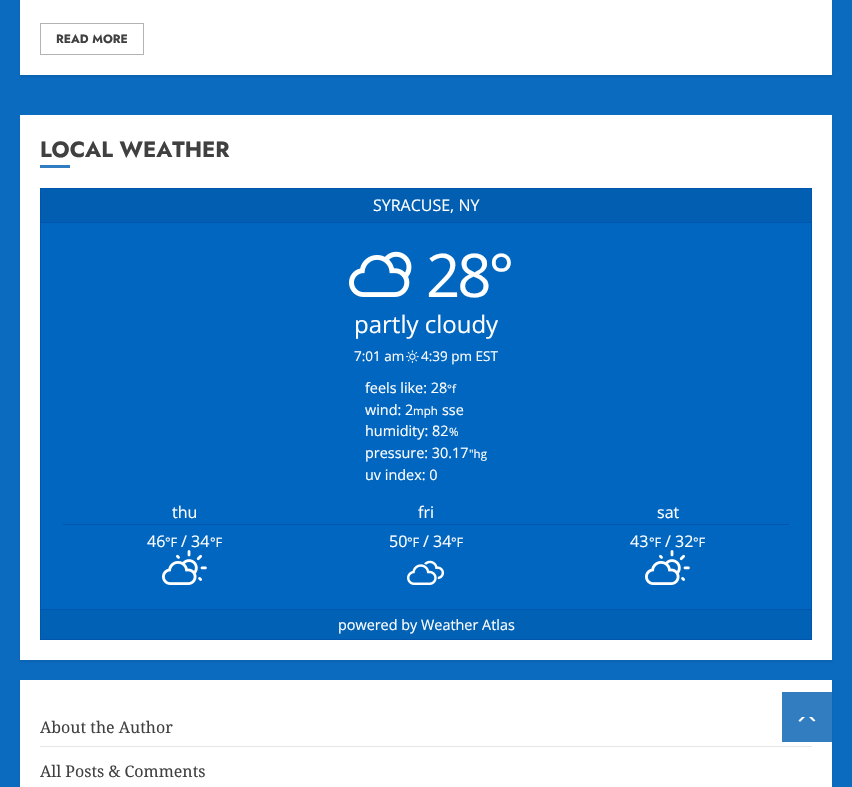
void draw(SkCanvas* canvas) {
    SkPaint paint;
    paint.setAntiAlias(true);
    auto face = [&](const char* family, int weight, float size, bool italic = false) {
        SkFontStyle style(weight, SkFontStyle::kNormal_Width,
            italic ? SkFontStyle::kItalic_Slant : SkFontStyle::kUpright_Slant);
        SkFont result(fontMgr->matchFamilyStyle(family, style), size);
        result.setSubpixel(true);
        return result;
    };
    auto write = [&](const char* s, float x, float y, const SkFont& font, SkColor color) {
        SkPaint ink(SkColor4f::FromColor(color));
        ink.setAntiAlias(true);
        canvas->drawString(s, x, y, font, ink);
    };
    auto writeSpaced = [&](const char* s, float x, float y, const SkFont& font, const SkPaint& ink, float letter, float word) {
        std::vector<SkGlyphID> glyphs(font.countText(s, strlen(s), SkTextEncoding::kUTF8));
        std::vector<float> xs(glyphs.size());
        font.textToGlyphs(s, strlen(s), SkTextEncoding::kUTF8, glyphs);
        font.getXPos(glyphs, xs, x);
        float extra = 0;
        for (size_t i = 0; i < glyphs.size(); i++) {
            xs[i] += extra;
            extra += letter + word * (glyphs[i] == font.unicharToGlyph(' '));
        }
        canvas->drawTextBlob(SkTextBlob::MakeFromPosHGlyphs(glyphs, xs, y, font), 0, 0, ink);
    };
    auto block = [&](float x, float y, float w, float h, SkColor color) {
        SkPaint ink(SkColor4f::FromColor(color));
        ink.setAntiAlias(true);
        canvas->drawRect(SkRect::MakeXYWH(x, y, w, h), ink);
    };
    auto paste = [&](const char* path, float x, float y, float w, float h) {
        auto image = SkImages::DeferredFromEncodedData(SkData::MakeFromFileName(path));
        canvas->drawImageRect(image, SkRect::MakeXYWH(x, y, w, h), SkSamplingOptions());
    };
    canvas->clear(SkColorSetRGB(11, 107, 191));
    paint.setColor(SkColorSetARGB(20, 0, 0, 0));
    paint.setMaskFilter(SkMaskFilter::MakeBlur(kNormal_SkBlurStyle, 1));
    canvas->drawRect(SkRect::MakeXYWH(20, -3, 812, 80), paint);
    paint.setMaskFilter(nullptr);
    block(20, 0, 812, 75, SK_ColorWHITE);
    paint.setStyle(SkPaint::kStroke_Style);
    paint.setStrokeWidth(1);
    paint.setColor(SkColorSetRGB(179, 179, 179));
    canvas->drawRect(SkRect::MakeXYWH(40.5f, 23.5f, 103, 31), paint);
    auto kFont1 = face("Jost", 700, 12);
    write("READ MORE", 56, 43, kFont1, SkColorSetRGB(64, 64, 64));
    paint.setStyle(SkPaint::kFill_Style);
    paint.setColor(SkColorSetARGB(20, 0, 0, 0));
    paint.setMaskFilter(SkMaskFilter::MakeBlur(kNormal_SkBlurStyle, 1));
    canvas->drawRect(SkRect::MakeXYWH(20, 117, 812, 545), paint);
    paint.setMaskFilter(nullptr);
    block(20, 115, 812, 545, SK_ColorWHITE);
    auto kFont2 = face("Jost", 700, 22);
    write("LOCAL WEATHER", 40, 157, kFont2, SkColorSetRGB(64, 64, 64));
    block(40, 165, 30, 3, SkColorSetRGB(49, 125, 191));
    block(41, 223, 770, 386, SkColorSetRGB(1, 102, 191));
    paint.setStyle(SkPaint::kStroke_Style);
    paint.setColor(SkColorSetRGB(0, 85, 174));
    canvas->drawRect(SkRect::MakeXYWH(40.5f, 188.5f, 771, 451), paint);
    block(41, 189, 770, 33, SkColorSetRGB(1, 94, 177));
    block(41, 222, 770, 1, SkColorSetRGB(0, 85, 174));
    auto kFont3 = face("Open Sans", 400, 16);
    write("SYRACUSE, NY", 373, 211, kFont3, SK_ColorWHITE);
    paste("pic1.png", 349, 251, 63, 46);
    auto kFont4 = face("Open Sans", 400, 60);
    paint.setStyle(SkPaint::kFill_Style);
    paint.setColor(SK_ColorWHITE);
    writeSpaced("28°", 426, 297, kFont4, paint, -3, 0);
    auto kFont5 = face("Open Sans", 400, 24);
    write("partly cloudy", 354, 333, kFont5, SK_ColorWHITE);
    auto kFont6 = face("Open Sans", 400, 13.5f);
    write("7:01 am", 354, 361, kFont6, SK_ColorWHITE);
    paste("pic2.png", 406, 350, 13, 13);
    write("4:39 pm EST", 421, 361, kFont6, SK_ColorWHITE);
    auto kFont7 = face("Open Sans", 400, 14.4f);
    write("feels like: 28", 365, 393, kFont7, SK_ColorWHITE);
    auto kFont8 = face("Open Sans", 400, 11.5f);
    write("°f", 447, 393, kFont8, SK_ColorWHITE);
    write("wind: 2", 365, 415, kFont7, SK_ColorWHITE);
    write("mph", 413, 415, kFont8, SK_ColorWHITE);
    write("sse", 442, 415, kFont7, SK_ColorWHITE);
    write("humidity: 82", 365, 436, kFont7, SK_ColorWHITE);
    write("%", 449, 436, kFont8, SK_ColorWHITE);
    write("pressure: 30.17", 365, 458, kFont7, SK_ColorWHITE);
    write("\"hg", 469, 458, kFont8, SK_ColorWHITE);
    write("uv index: 0", 365, 480, kFont7, SK_ColorWHITE);
    block(63, 524, 726, 1, SkColorSetRGB(0, 85, 174));
    write("thu", 172, 518, kFont3, SK_ColorWHITE);
    write("fri", 418, 518, kFont3, SK_ColorWHITE);
    write("sat", 657, 518, kFont3, SK_ColorWHITE);
    write("46", 147, 547, kFont3, SK_ColorWHITE);
    auto kFont9 = face("Open Sans", 400, 13);
    write("°F", 165, 547, kFont9, SK_ColorWHITE);
    write("/ 34", 181, 547, kFont3, SK_ColorWHITE);
    write("°F", 210, 547, kFont9, SK_ColorWHITE);
    paste("pic3.png", 162, 550, 45, 35);
    write("50", 389, 547, kFont3, SK_ColorWHITE);
    write("°F", 407, 547, kFont9, SK_ColorWHITE);
    write("/ 34", 423, 547, kFont3, SK_ColorWHITE);
    write("°F", 451, 547, kFont9, SK_ColorWHITE);
    paste("pic4.png", 407, 560, 37, 25);
    write("43", 630, 547, kFont3, SK_ColorWHITE);
    write("°F", 649, 547, kFont9, SK_ColorWHITE);
    write("/ 32", 665, 547, kFont3, SK_ColorWHITE);
    write("°F", 693, 547, kFont9, SK_ColorWHITE);
    paste("pic3.png", 645, 550, 45, 35);
    block(41, 610, 770, 29, SkColorSetRGB(1, 97, 181));
    block(41, 609, 770, 1, SkColorSetRGB(0, 85, 174));
    write("powered by Weather Atlas", 338, 630, kFont7, SK_ColorWHITE);
    paint.setColor(SkColorSetARGB(20, 0, 0, 0));
    paint.setMaskFilter(SkMaskFilter::MakeBlur(kNormal_SkBlurStyle, 1));
    canvas->drawRect(SkRect::MakeXYWH(20, 682, 812, 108), paint);
    paint.setMaskFilter(nullptr);
    block(20, 680, 812, 107, SK_ColorWHITE);
    block(40, 746, 772, 1, SkColorSetRGB(230, 230, 230));
    auto kFont10 = face("Noto Serif", 400, 16);
    write("About the Author", 40, 733, kFont10, SkColorSetRGB(64, 64, 64));
    write("All Posts & Comments", 40, 777, kFont10, SkColorSetRGB(64, 64, 64));
    block(782, 692, 50, 50, SkColorSetRGB(49, 125, 191));
    paint.setColor(SK_ColorWHITE);
    canvas->drawPath(SkPathBuilder().moveTo(802, 722).cubicTo(805, 722, 813.5f, 723, 815.5f, 720.5f).lineTo(812, 717).lineTo(802, 717).lineTo(798.5f, 720.5f).cubicTo(799, 721.5f, 800.5f, 722, 802, 722).close().detach(), paint);
    paint.setColor(SkColorSetRGB(49, 125, 191));
    canvas->drawPath(SkPathBuilder().moveTo(817, 725).lineTo(797, 725).lineTo(807, 715).close().detach(), paint);
}
